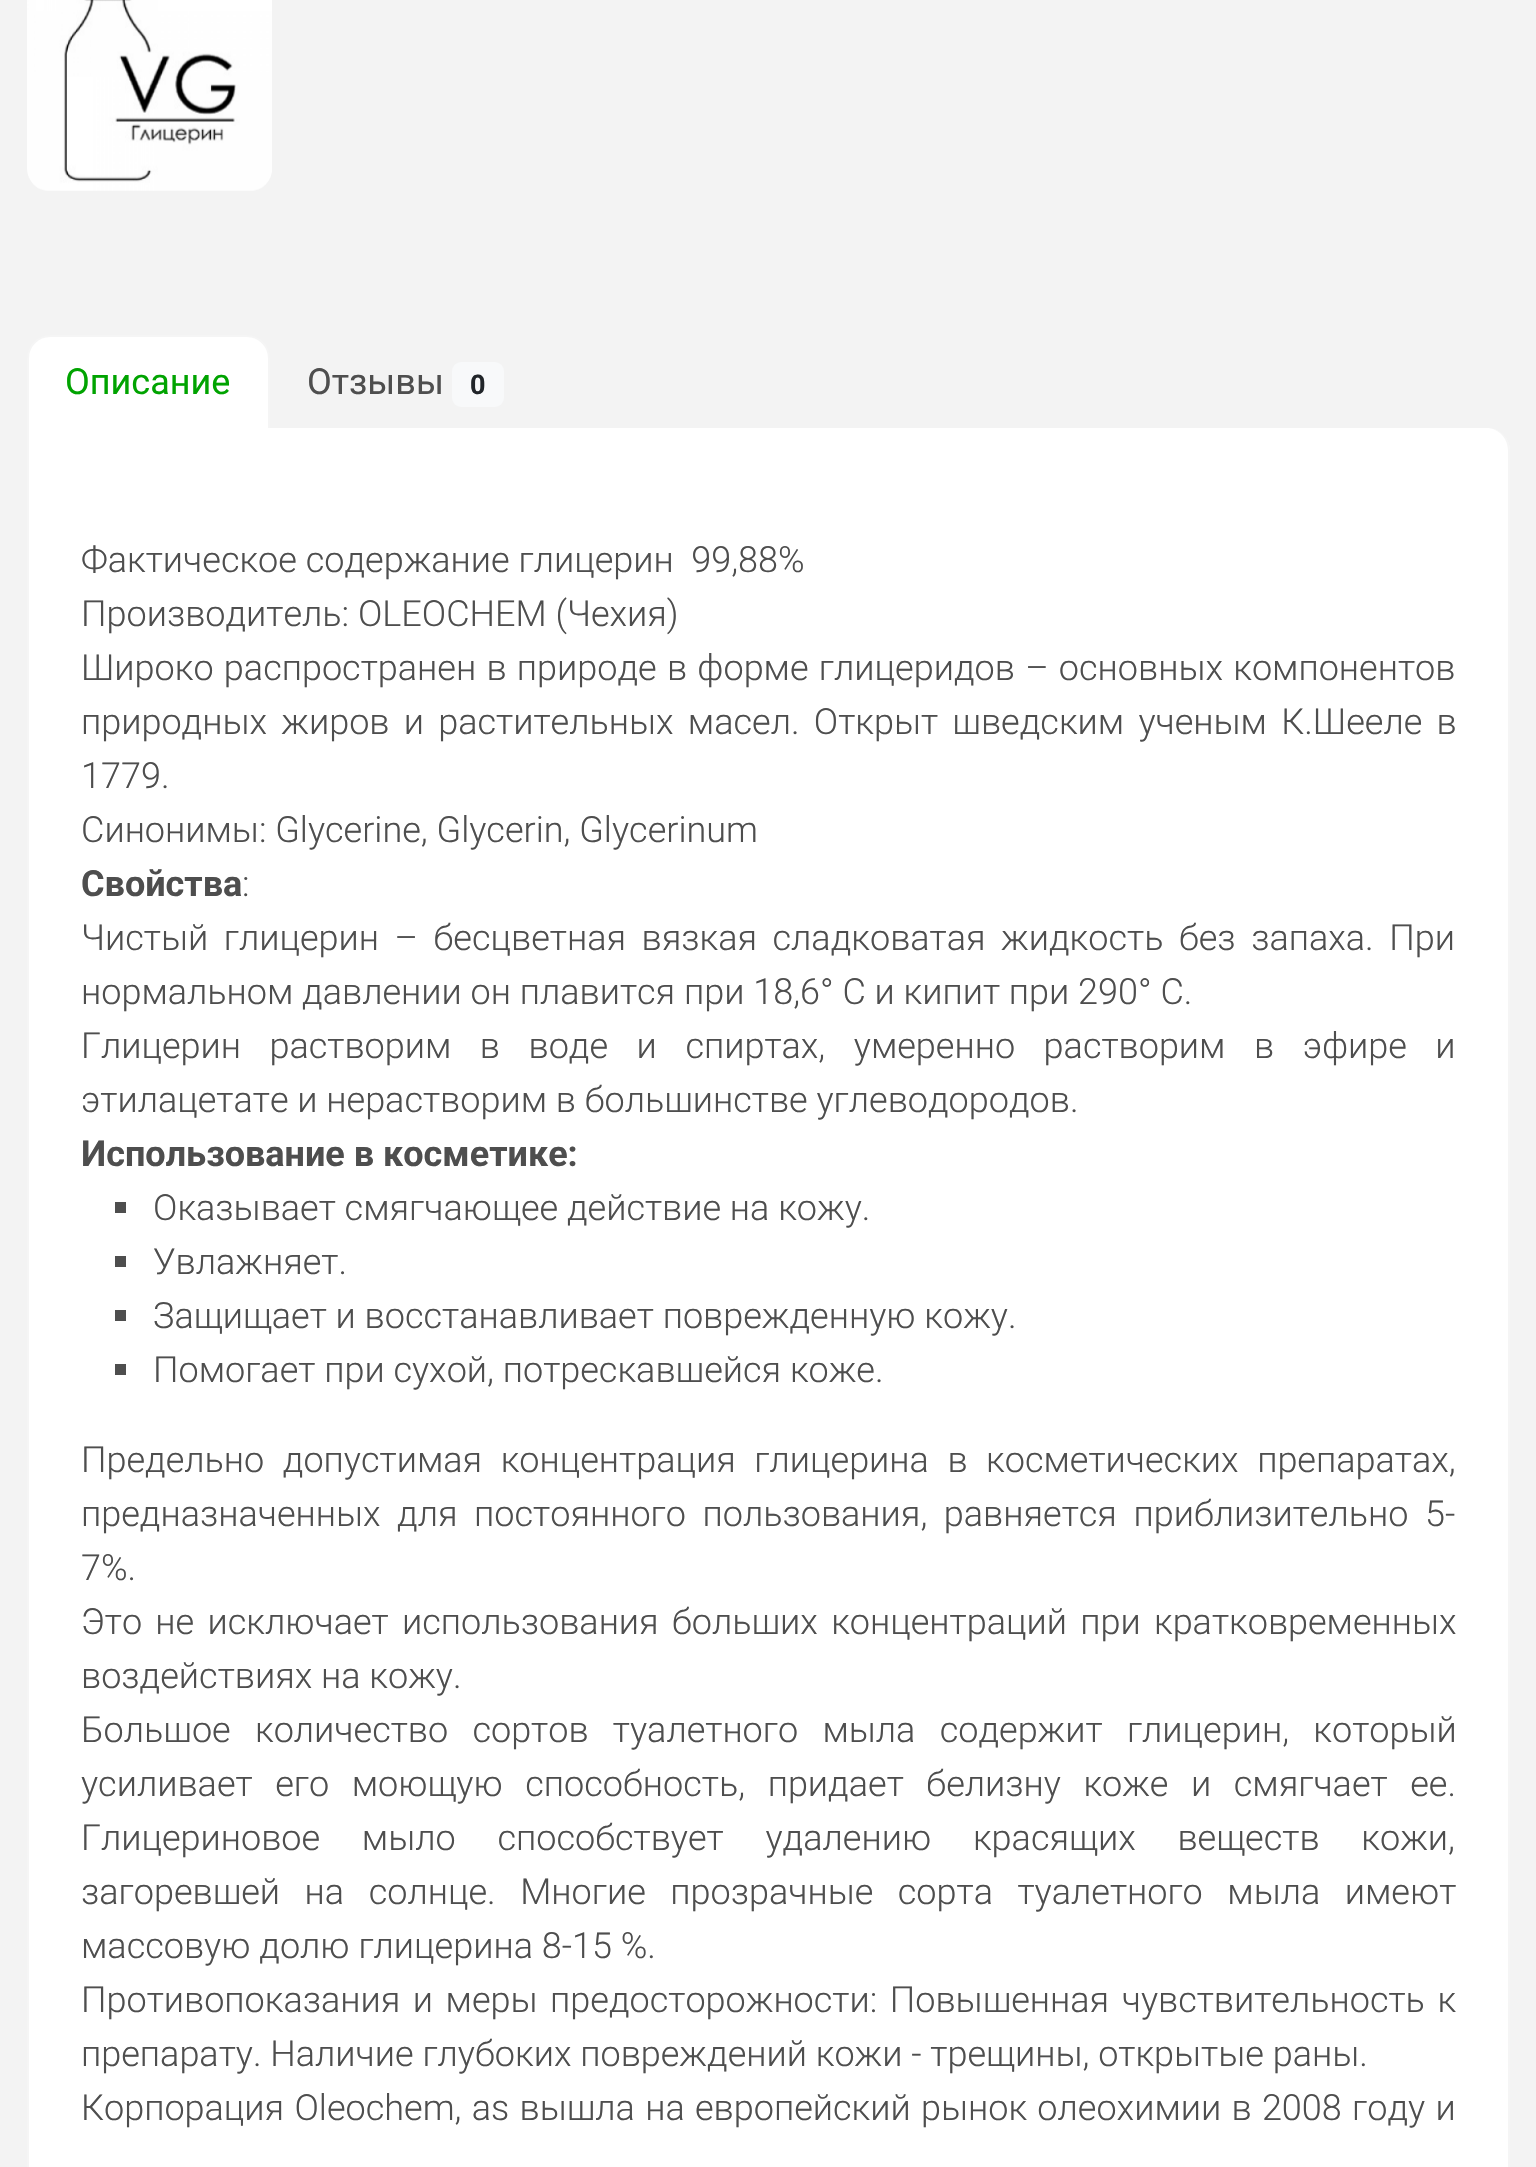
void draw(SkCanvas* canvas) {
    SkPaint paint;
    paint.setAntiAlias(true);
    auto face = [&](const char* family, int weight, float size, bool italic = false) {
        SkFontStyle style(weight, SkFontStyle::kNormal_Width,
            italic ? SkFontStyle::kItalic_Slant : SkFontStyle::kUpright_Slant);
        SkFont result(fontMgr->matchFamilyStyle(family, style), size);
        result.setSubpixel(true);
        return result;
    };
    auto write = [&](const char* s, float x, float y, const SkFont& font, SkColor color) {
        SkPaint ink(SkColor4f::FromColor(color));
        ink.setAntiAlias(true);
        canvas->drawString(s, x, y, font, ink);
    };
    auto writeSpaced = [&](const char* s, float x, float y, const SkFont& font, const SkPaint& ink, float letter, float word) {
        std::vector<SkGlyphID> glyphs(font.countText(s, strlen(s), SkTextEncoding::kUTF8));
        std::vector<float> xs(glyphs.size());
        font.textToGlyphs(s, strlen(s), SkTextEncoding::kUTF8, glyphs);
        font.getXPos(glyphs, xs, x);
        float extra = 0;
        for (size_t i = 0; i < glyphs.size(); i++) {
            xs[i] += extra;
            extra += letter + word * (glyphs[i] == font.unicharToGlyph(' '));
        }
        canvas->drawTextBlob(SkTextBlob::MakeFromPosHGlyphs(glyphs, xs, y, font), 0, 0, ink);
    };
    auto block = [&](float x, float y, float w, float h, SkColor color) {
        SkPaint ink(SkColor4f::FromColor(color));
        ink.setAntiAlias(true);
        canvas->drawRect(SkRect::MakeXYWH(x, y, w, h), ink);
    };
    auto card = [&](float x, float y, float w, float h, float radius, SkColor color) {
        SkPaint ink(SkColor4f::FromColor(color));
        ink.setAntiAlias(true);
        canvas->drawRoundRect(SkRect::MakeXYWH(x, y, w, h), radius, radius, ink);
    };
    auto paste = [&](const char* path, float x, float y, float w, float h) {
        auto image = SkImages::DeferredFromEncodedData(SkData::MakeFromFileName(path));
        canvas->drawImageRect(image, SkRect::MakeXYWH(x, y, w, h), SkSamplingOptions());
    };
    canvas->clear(SK_ColorWHITE);
    {
        const SkColor colors[] = {SK_ColorWHITE, SkColorSetRGB(243, 243, 243)};
        const float stops[] = {0, 0.38f};
        const SkPoint ends[] = {{768, -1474}, {768, 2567}};
        paint.setShader(SkGradientShader::MakeLinear(ends, colors, stops, 2, SkTileMode::kClamp));
        paint.setAlpha(255);
    }
    canvas->drawRect(SkRect::MakeXYWH(0, 0, 1536, 2167), paint);
    paste("pic1.png", 27, 0, 245, 191);
    paint.setShader(nullptr);
    paint.setColor(SK_ColorWHITE);
    canvas->drawPath(SkPathBuilder().moveTo(50, 336).lineTo(247, 336).cubicTo(259, 336, 269, 346, 269, 358).lineTo(269, 429).lineTo(28, 429).lineTo(28, 358).cubicTo(28, 346, 38, 336, 50, 336).close().detach(), paint);
    paint.setStyle(SkPaint::kStroke_Style);
    paint.setStrokeWidth(2);
    paint.setColor(SkColorSetRGB(245, 245, 245));
    canvas->drawPath(SkPathBuilder().moveTo(50, 336).lineTo(247, 336).cubicTo(259, 336, 269, 346, 269, 358).lineTo(269, 429).lineTo(28, 429).lineTo(28, 358).cubicTo(28, 346, 38, 336, 50, 336).close().detach(), paint);
    auto kFont1 = face("Roboto", 400, 36);
    write("Описание", 65, 394, kFont1, SkColorSetRGB(0, 163, 0));
    write("Отзывы", 307, 394, kFont1, SkColorSetRGB(78, 78, 78));
    card(452, 362, 52, 45, 9, SkColorSetRGB(248, 249, 250));
    auto kFont2 = face("Roboto", 700, 27);
    write("0", 470, 394, kFont2, SkColorSetRGB(33, 37, 41));
    paint.setStyle(SkPaint::kFill_Style);
    paint.setColor(SK_ColorWHITE);
    canvas->drawPath(SkPathBuilder().moveTo(27, 428).lineTo(1487, 428).cubicTo(1499.5f, 428, 1510, 438.5f, 1510, 451).lineTo(1510, 2167).cubicTo(1510, 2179.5f, 1499.5f, 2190, 1487, 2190).lineTo(50, 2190).cubicTo(37.5f, 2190, 27, 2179.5f, 27, 2167).close().detach(), paint);
    paint.setColor(SkColorSetRGB(245, 245, 245));
    canvas->drawPath(SkPathBuilder(SkPathFillType::kEvenOdd).moveTo(27, 428).lineTo(1487, 428).cubicTo(1500, 428, 1510, 438, 1510, 450).lineTo(1510, 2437).cubicTo(1510, 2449, 1500, 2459, 1487, 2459).lineTo(50, 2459).cubicTo(37, 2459, 27, 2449, 27, 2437).close().moveTo(29, 428).lineTo(1487, 428).cubicTo(1498, 428, 1508, 438, 1508, 450).lineTo(1508, 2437).cubicTo(1508, 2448, 1498, 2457, 1487, 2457).lineTo(50, 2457).cubicTo(38, 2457, 29, 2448, 29, 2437).close().detach(), paint);
    auto kFont3 = face("Roboto", 300, 36);
    write("Фактическое содержание глицерин  99,88%", 81, 572, kFont3, SkColorSetRGB(78, 78, 78));
    write("Производитель: OLEOCHEM (Чехия)", 81, 626, kFont3, SkColorSetRGB(78, 78, 78));
    paint.setColor(SkColorSetRGB(78, 78, 78));
    writeSpaced("Широко распространен в природе в форме глицеридов – основных компонентов", 81, 680, kFont3, paint, 0, 1.5f);
    writeSpaced("природных жиров и растительных масел. Открыт шведским ученым К.Шееле в", 81, 734, kFont3, paint, 0, 5.5f);
    write("1779.", 81, 788, kFont3, SkColorSetRGB(78, 78, 78));
    write("Синонимы: Glycerinе, Glycerin, Glycerinum", 81, 842, kFont3, SkColorSetRGB(78, 78, 78));
    auto kFont4 = face("Roboto", 700, 36);
    write("Свойства", 81, 896, kFont4, SkColorSetRGB(78, 78, 78));
    write(":", 242, 896, kFont3, SkColorSetRGB(78, 78, 78));
    writeSpaced("Чистый глицерин – бесцветная вязкая сладковатая жидкость без запаха. При", 81, 950, kFont3, paint, 0, 6.75f);
    write("нормальном давлении он плавится при 18,6° C и кипит при 290° C.", 81, 1004, kFont3, SkColorSetRGB(78, 78, 78));
    writeSpaced("Глицерин растворим в воде и спиртах, умеренно растворим в эфире и", 81, 1058, kFont3, paint, 0, 19.75f);
    write("этилацетате и нерастворим в большинстве углеводородов.", 81, 1112, kFont3, SkColorSetRGB(78, 78, 78));
    write("Использование в косметике:", 81, 1166, kFont4, SkColorSetRGB(78, 78, 78));
    block(115, 1202, 11, 11, SkColorSetRGB(78, 78, 78));
    write("Оказывает смягчающее действие на кожу.", 153, 1220, kFont3, SkColorSetRGB(78, 78, 78));
    block(115, 1256, 11, 11, SkColorSetRGB(78, 78, 78));
    write("Увлажняет.", 153, 1274, kFont3, SkColorSetRGB(78, 78, 78));
    block(115, 1310, 11, 11, SkColorSetRGB(78, 78, 78));
    write("Защищает и восстанавливает поврежденную кожу.", 153, 1328, kFont3, SkColorSetRGB(78, 78, 78));
    block(115, 1364, 11, 11, SkColorSetRGB(78, 78, 78));
    write("Помогает при сухой, потрескавшейся коже.", 153, 1382, kFont3, SkColorSetRGB(78, 78, 78));
    writeSpaced("Предельно допустимая концентрация глицерина в косметических препаратах,", 81, 1472, kFont3, paint, 0, 9.75f);
    writeSpaced("предназначенных для постоянного пользования, равняется приблизительно 5-", 81, 1526, kFont3, paint, 0, 7.75f);
    write("7%.", 81, 1580, kFont3, SkColorSetRGB(78, 78, 78));
    writeSpaced("Это не исключает использования больших концентраций при кратковременных", 81, 1634, kFont3, paint, 0, 4.5f);
    write("воздействиях на кожу.", 81, 1688, kFont3, SkColorSetRGB(78, 78, 78));
    writeSpaced("Большое количество сортов туалетного мыла содержит глицерин, который", 81, 1742, kFont3, paint, 0, 15.5f);
    writeSpaced("усиливает его моющую способность, придает белизну коже и смягчает ее.", 81, 1796, kFont3, paint, 0, 13.75f);
    writeSpaced("Глицериновое мыло способствует удалению красящих веществ кожи,", 81, 1850, kFont3, paint, 0, 33);
    writeSpaced("загоревшей на солнце. Многие прозрачные сорта туалетного мыла имеют", 81, 1904, kFont3, paint, 0, 15.75f);
    write("массовую долю глицерина 8-15 %.", 81, 1958, kFont3, SkColorSetRGB(78, 78, 78));
    writeSpaced("Противопоказания и меры предосторожности: Повышенная чувствительность к", 81, 2012, kFont3, paint, 0, 3.75f);
    write("препарату. Наличие глубоких повреждений кожи - трещины, открытые раны.", 81, 2066, kFont3, SkColorSetRGB(78, 78, 78));
    writeSpaced("Корпорация Oleochem, as вышла на европейский рынок олеохимии в 2008 году и", 81, 2120, kFont3, paint, 0, 1.5f);
}
